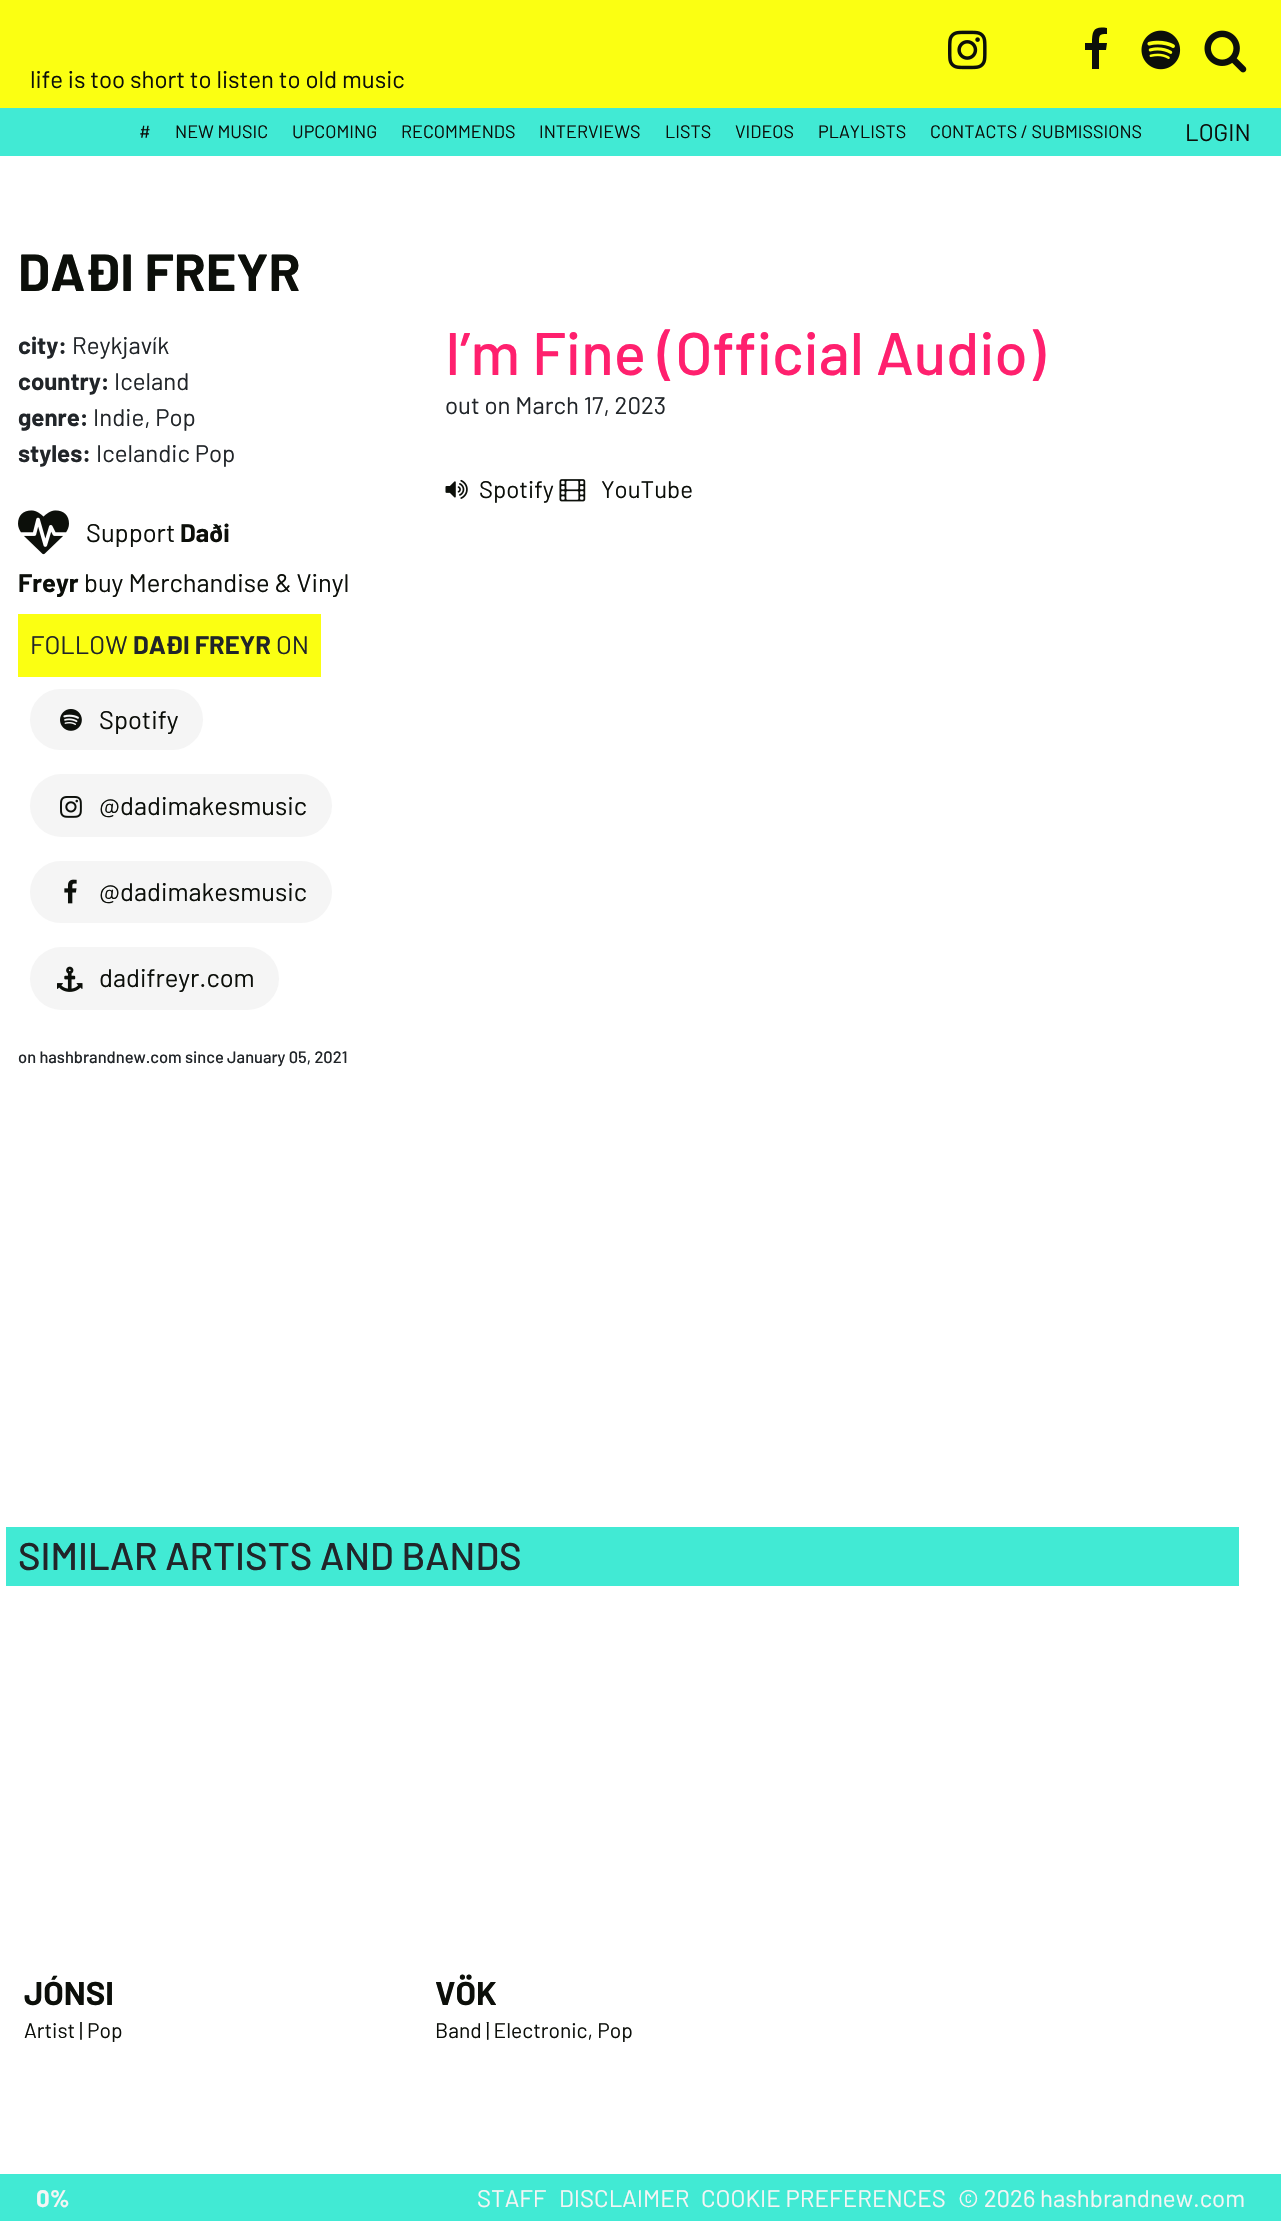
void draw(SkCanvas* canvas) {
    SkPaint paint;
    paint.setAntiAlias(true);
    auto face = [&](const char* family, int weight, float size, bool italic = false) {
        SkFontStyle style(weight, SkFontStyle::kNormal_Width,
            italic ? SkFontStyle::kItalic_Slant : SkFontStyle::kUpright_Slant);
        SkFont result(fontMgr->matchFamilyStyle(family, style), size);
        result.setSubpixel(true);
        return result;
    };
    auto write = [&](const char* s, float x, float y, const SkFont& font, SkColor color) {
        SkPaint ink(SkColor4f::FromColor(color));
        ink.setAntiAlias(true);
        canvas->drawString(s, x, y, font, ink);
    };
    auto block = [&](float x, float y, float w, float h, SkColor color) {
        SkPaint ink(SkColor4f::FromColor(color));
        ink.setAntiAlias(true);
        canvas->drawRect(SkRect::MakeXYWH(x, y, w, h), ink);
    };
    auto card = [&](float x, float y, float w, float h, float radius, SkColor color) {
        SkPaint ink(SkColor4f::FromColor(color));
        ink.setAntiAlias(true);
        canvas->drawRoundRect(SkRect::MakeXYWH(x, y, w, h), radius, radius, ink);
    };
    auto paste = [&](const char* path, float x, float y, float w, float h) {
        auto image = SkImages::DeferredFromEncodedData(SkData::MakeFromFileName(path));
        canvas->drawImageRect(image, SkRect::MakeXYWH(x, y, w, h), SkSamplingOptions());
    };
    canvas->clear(SK_ColorWHITE);
    block(0, 0, 1281, 108, SkColorSetRGB(251, 255, 18));
    auto kFont1 = face("Barlow", 400, 24);
    write("life is too short to listen to old music", 30, 88, kFont1, SkColorSetRGB(12, 15, 10));
    paste("pic1.png", 948, 30, 39, 40);
    paint.setColor(SkColorSetRGB(12, 15, 10));
    canvas->drawPath(SkPathBuilder().moveTo(1107, 28).cubicTo(1094, 26, 1092, 30, 1092, 43).lineTo(1085, 43).lineTo(1085, 50).lineTo(1092, 50).lineTo(1092, 69).lineTo(1099, 69).lineTo(1099, 50).lineTo(1106, 50).lineTo(1107, 43).lineTo(1099, 43).cubicTo(1099, 35, 1099, 34, 1107, 34).close().detach(), paint);
    paste("pic2.png", 1141, 30, 40, 40);
    paste("pic3.png", 1204, 30, 43, 43);
    block(0, 108, 1281, 48, SkColorSetRGB(65, 234, 212));
    auto kFont2 = face("Barlow", 400, 18);
    write("#", 139, 138, kFont2, SkColorSetRGB(12, 15, 10));
    write("NEW MUSIC", 175, 138, kFont2, SkColorSetRGB(12, 15, 10));
    write("UPCOMING", 292, 138, kFont2, SkColorSetRGB(12, 15, 10));
    write("RECOMMENDS", 401, 138, kFont2, SkColorSetRGB(12, 15, 10));
    write("INTERVIEWS", 539, 138, kFont2, SkColorSetRGB(12, 15, 10));
    write("LISTS", 665, 138, kFont2, SkColorSetRGB(12, 15, 10));
    write("VIDEOS", 735, 138, kFont2, SkColorSetRGB(12, 15, 10));
    write("PLAYLISTS", 818, 138, kFont2, SkColorSetRGB(12, 15, 10));
    write("CONTACTS / SUBMISSIONS", 930, 138, kFont2, SkColorSetRGB(12, 15, 10));
    write("LOGIN", 1185, 141, kFont1, SkColorSetRGB(12, 15, 10));
    auto kFont3 = face("Barlow", 700, 52.25f);
    write("DAÐI FREYR", 18, 291, kFont3, SkColorSetRGB(12, 15, 10));
    auto kFont4 = face("Barlow", 700, 24);
    write("city:", 18, 354, kFont4, SkColorSetRGB(33, 37, 41));
    write("Reykjavík", 72, 354, kFont1, SkColorSetRGB(33, 37, 41));
    write("country:", 18, 390, kFont4, SkColorSetRGB(33, 37, 41));
    write("Iceland", 114, 390, kFont1, SkColorSetRGB(33, 37, 41));
    write("genre:", 18, 426, kFont4, SkColorSetRGB(33, 37, 41));
    write("Indie, Pop", 93, 426, kFont1, SkColorSetRGB(33, 37, 41));
    write("styles:", 18, 462, kFont4, SkColorSetRGB(33, 37, 41));
    write("Icelandic Pop", 96, 462, kFont1, SkColorSetRGB(33, 37, 41));
    paste("pic4.png", 18, 510, 51, 45);
    auto kFont5 = face("Barlow", 400, 25.5f);
    write("Support", 86, 542, kFont5, SkColorSetRGB(12, 15, 10));
    auto kFont6 = face("Barlow", 700, 25.5f);
    write("Daði", 180, 542, kFont6, SkColorSetRGB(12, 15, 10));
    write("Freyr", 18, 592, kFont6, SkColorSetRGB(12, 15, 10));
    write("buy Merchandise & Vinyl", 84, 592, kFont5, SkColorSetRGB(12, 15, 10));
    block(18, 614, 303, 63, SkColorSetRGB(251, 255, 18));
    write("FOLLOW", 30, 654, kFont5, SkColorSetRGB(33, 37, 41));
    write("DAÐI FREYR", 133, 654, kFont6, SkColorSetRGB(33, 37, 41));
    write("ON", 276, 654, kFont5, SkColorSetRGB(33, 37, 41));
    card(30, 689, 173, 61, 30.5f, SkColorSetRGB(245, 245, 245));
    paste("pic5.png", 60, 709, 22, 22);
    write("Spotify", 99, 729, kFont5, SkColorSetRGB(12, 15, 10));
    card(30, 774, 302, 63, 31.5f, SkColorSetRGB(245, 245, 245));
    paste("pic6.png", 60, 796, 22, 22);
    write("@dadimakesmusic", 99, 815, kFont5, SkColorSetRGB(12, 15, 10));
    card(30, 861, 302, 62, 31, SkColorSetRGB(245, 245, 245));
    paste("pic7.png", 64, 879, 13, 25);
    write("@dadimakesmusic", 99, 901, kFont5, SkColorSetRGB(12, 15, 10));
    card(30, 947, 249, 63, 31.5f, SkColorSetRGB(245, 245, 245));
    paste("pic8.png", 57, 966, 26, 26);
    write("dadifreyr.com", 99, 987, kFont5, SkColorSetRGB(12, 15, 10));
    auto kFont7 = face("Barlow", 500, 16.5f);
    write("on hashbrandnew.com since January 05, 2021", 18, 1063, kFont7, SkColorSetRGB(33, 37, 41));
    auto kFont8 = face("Barlow", 500, 60);
    write("I’m Fine (Official Audio)", 445, 375, kFont8, SkColorSetRGB(255, 32, 110));
    write("out on March 17, 2023", 445, 414, kFont1, SkColorSetRGB(33, 37, 41));
    paste("pic9.png", 445, 479, 23, 20);
    write("Spotify", 479, 498, kFont1, SkColorSetRGB(12, 15, 10));
    paste("pic10.png", 559, 479, 27, 23);
    write("YouTube", 601, 498, kFont1, SkColorSetRGB(12, 15, 10));
    block(6, 1527, 1233, 59, SkColorSetRGB(65, 234, 212));
    auto kFont9 = face("Barlow", 500, 38.4f);
    write("SIMILAR ARTISTS AND BANDS", 18, 1570, kFont9, SkColorSetRGB(33, 37, 41));
    auto kFont10 = face("Barlow", 700, 33);
    write("JÓNSI", 24, 2005, kFont10, SkColorSetRGB(12, 15, 10));
    auto kFont11 = face("Barlow", 400, 21);
    write("Artist | Pop", 24, 2038, kFont11, SkColorSetRGB(12, 15, 10));
    write("VÖK", 435, 2005, kFont10, SkColorSetRGB(12, 15, 10));
    write("Band | Electronic, Pop", 435, 2038, kFont11, SkColorSetRGB(12, 15, 10));
    block(0, 2174, 1281, 47, SkColorSetRGB(65, 234, 212));
    write("0%", 36, 2207, kFont4, SkColorSetRGB(245, 245, 245));
    write("STAFF", 477, 2207, kFont1, SkColorSetRGB(245, 245, 245));
    write("DISCLAIMER", 559, 2207, kFont1, SkColorSetRGB(245, 245, 245));
    write("COOKIE PREFERENCES", 701, 2207, kFont1, SkColorSetRGB(245, 245, 245));
    write("© 2026 hashbrandnew.com", 958, 2207, kFont1, SkColorSetRGB(245, 245, 245));
}
